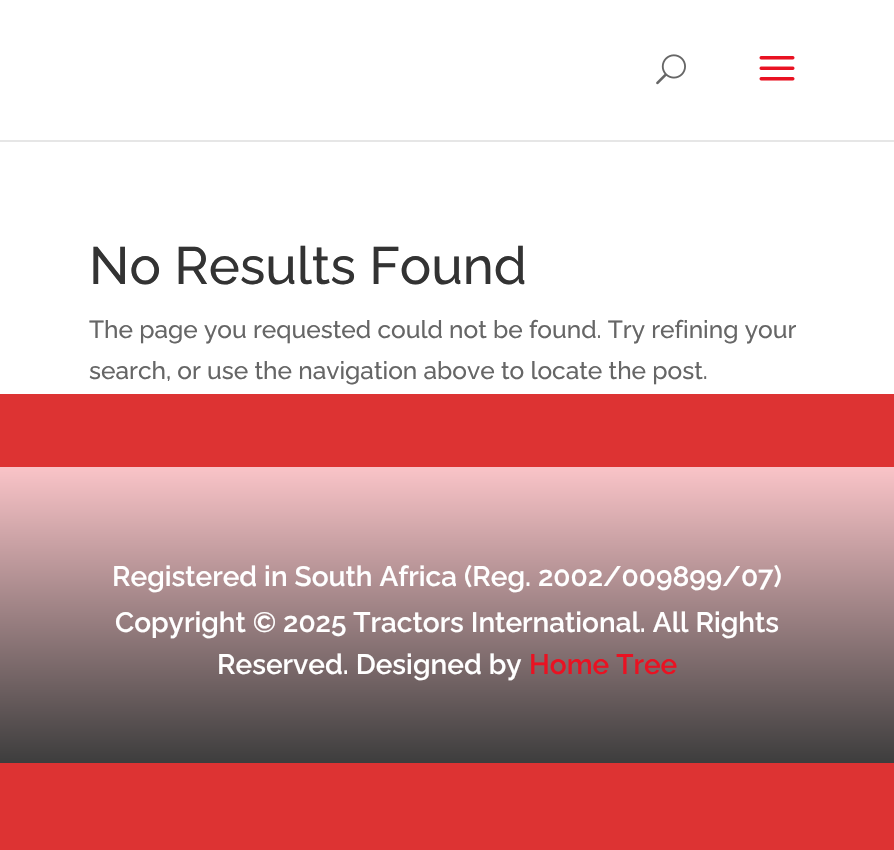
void draw(SkCanvas* canvas) {
    SkPaint paint;
    paint.setAntiAlias(true);
    auto face = [&](const char* family, int weight, float size, bool italic = false) {
        SkFontStyle style(weight, SkFontStyle::kNormal_Width,
            italic ? SkFontStyle::kItalic_Slant : SkFontStyle::kUpright_Slant);
        SkFont result(fontMgr->matchFamilyStyle(family, style), size);
        result.setSubpixel(true);
        return result;
    };
    auto write = [&](const char* s, float x, float y, const SkFont& font, SkColor color) {
        SkPaint ink(SkColor4f::FromColor(color));
        ink.setAntiAlias(true);
        canvas->drawString(s, x, y, font, ink);
    };
    auto block = [&](float x, float y, float w, float h, SkColor color) {
        SkPaint ink(SkColor4f::FromColor(color));
        ink.setAntiAlias(true);
        canvas->drawRect(SkRect::MakeXYWH(x, y, w, h), ink);
    };
    auto paste = [&](const char* path, float x, float y, float w, float h) {
        auto image = SkImages::DeferredFromEncodedData(SkData::MakeFromFileName(path));
        canvas->drawImageRect(image, SkRect::MakeXYWH(x, y, w, h), SkSamplingOptions());
    };
    canvas->clear(SkColorSetRGB(221, 51, 51));
    block(0, 140, 894, 2, SkColorSetRGB(230, 230, 230));
    block(0, 0, 894, 140, SK_ColorWHITE);
    paste("pic1.png", 656, 54, 30, 31);
    paste("pic2.png", 759, 56, 36, 25);
    block(0, 142, 894, 252, SK_ColorWHITE);
    auto kFont1 = face("Raleway", 500, 52.5f);
    write("No Results Found", 89, 284, kFont1, SkColorSetRGB(51, 51, 51));
    auto kFont2 = face("Raleway", 500, 24.5f);
    write("The page you requested could not be found. Try refining your", 89, 338, kFont2, SkColorSetRGB(102, 102, 102));
    write("search, or use the navigation above to locate the post.", 89, 379, kFont2, SkColorSetRGB(102, 102, 102));
    {
        const SkColor colors[] = {SkColorSetRGB(250, 196, 200), SkColorSetRGB(61, 61, 61)};
        const float stops[] = {0, 1};
        const SkPoint ends[] = {{447, 467}, {447, 763}};
        paint.setShader(SkGradientShader::MakeLinear(ends, colors, stops, 2, SkTileMode::kClamp));
        paint.setAlpha(255);
    }
    canvas->drawRect(SkRect::MakeXYWH(0, 467, 894, 296), paint);
    auto kFont3 = face("Raleway", 600, 28);
    write("Registered in South Africa (Reg. 2002/009899/07)", 112, 586, kFont3, SK_ColorWHITE);
    write("Copyright © 2025 Tractors International. All Rights", 115, 632, kFont3, SK_ColorWHITE);
    write("Reserved. Designed by", 217, 674, kFont3, SK_ColorWHITE);
    write("Home Tree", 529, 674, kFont3, SkColorSetRGB(233, 18, 34));
}
